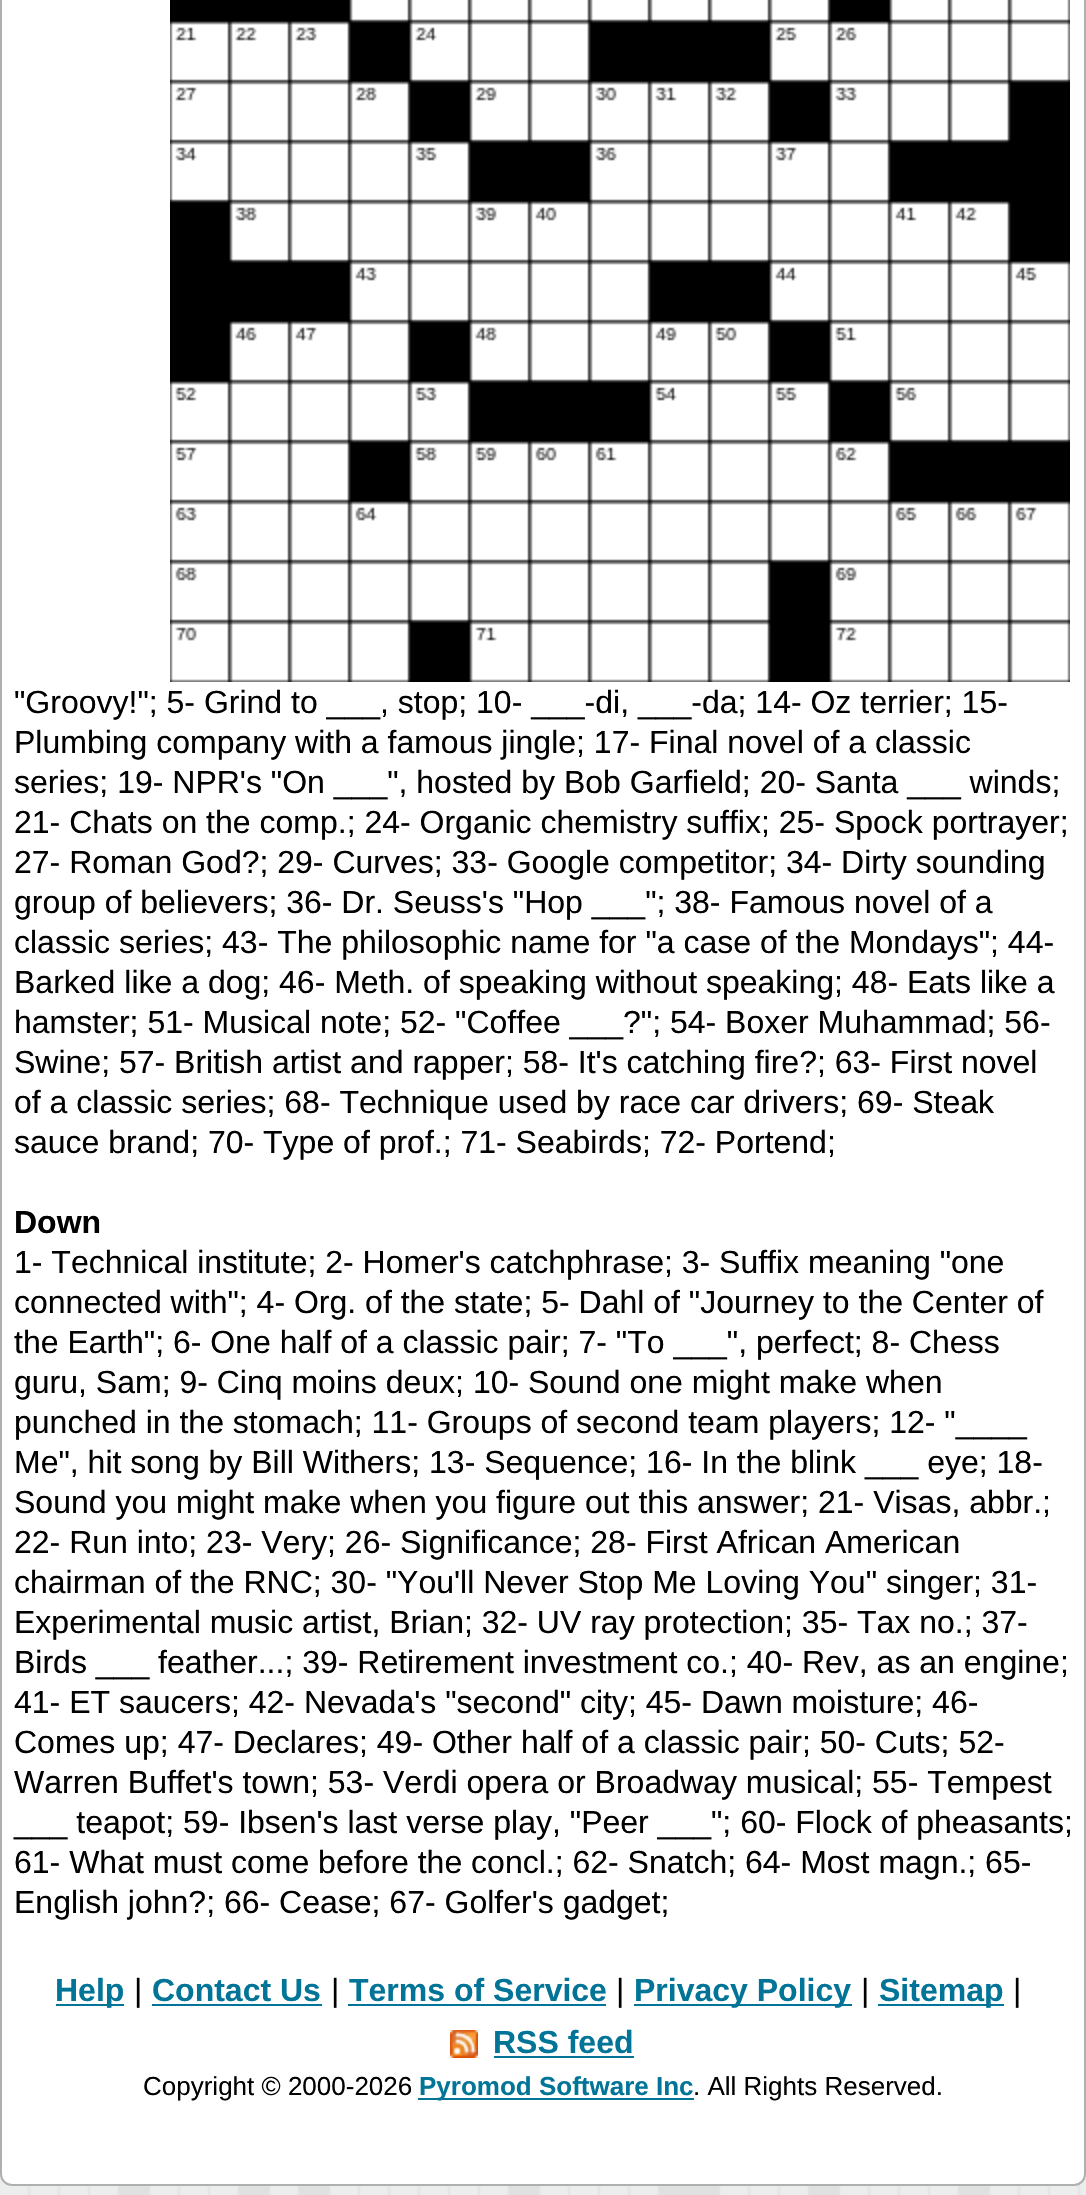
void draw(SkCanvas* canvas) {
    SkPaint paint;
    paint.setAntiAlias(true);
    auto face = [&](const char* family, int weight, float size, bool italic = false) {
        SkFontStyle style(weight, SkFontStyle::kNormal_Width,
            italic ? SkFontStyle::kItalic_Slant : SkFontStyle::kUpright_Slant);
        SkFont result(fontMgr->matchFamilyStyle(family, style), size);
        result.setSubpixel(true);
        return result;
    };
    auto write = [&](const char* s, float x, float y, const SkFont& font, SkColor color) {
        SkPaint ink(SkColor4f::FromColor(color));
        ink.setAntiAlias(true);
        canvas->drawString(s, x, y, font, ink);
    };
    auto block = [&](float x, float y, float w, float h, SkColor color) {
        SkPaint ink(SkColor4f::FromColor(color));
        ink.setAntiAlias(true);
        canvas->drawRect(SkRect::MakeXYWH(x, y, w, h), ink);
    };
    auto paste = [&](const char* path, float x, float y, float w, float h) {
        auto image = SkImages::DeferredFromEncodedData(SkData::MakeFromFileName(path));
        canvas->drawImageRect(image, SkRect::MakeXYWH(x, y, w, h), SkSamplingOptions());
    };
    canvas->clear(SK_ColorWHITE);
    paste("pic1.png", 0, 2174, 1086, 21);
    paint.setColor(SK_ColorWHITE);
    canvas->drawRoundRect(SkRect::MakeXYWH(1, -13, 1084, 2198), 11, 11, paint);
    paint.setStyle(SkPaint::kStroke_Style);
    paint.setStrokeWidth(2);
    paint.setColor(SkColorSetRGB(176, 175, 175));
    canvas->drawRoundRect(SkRect::MakeXYWH(1, -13, 1084, 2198), 11, 11, paint);
    paste("pic2.png", 170, 0, 900, 682);
    auto kFont1 = face("Liberation Sans", 400, 32);
    write("\"Groovy!\"; 5- Grind to ___, stop; 10- ___-di, ___-da; 14- Oz terrier; 15-", 14, 713, kFont1, SK_ColorBLACK);
    write("Plumbing company with a famous jingle; 17- Final novel of a classic", 14, 753, kFont1, SK_ColorBLACK);
    write("series; 19- NPR's \"On ___\", hosted by Bob Garfield; 20- Santa ___ winds;", 14, 793, kFont1, SK_ColorBLACK);
    write("21- Chats on the comp.; 24- Organic chemistry suffix; 25- Spock portrayer;", 14, 833, kFont1, SK_ColorBLACK);
    write("27- Roman God?; 29- Curves; 33- Google competitor; 34- Dirty sounding", 14, 873, kFont1, SK_ColorBLACK);
    write("group of believers; 36- Dr. Seuss's \"Hop ___\"; 38- Famous novel of a", 14, 913, kFont1, SK_ColorBLACK);
    write("classic series; 43- The philosophic name for \"a case of the Mondays\"; 44-", 14, 953, kFont1, SK_ColorBLACK);
    write("Barked like a dog; 46- Meth. of speaking without speaking; 48- Eats like a", 14, 993, kFont1, SK_ColorBLACK);
    write("hamster; 51- Musical note; 52- \"Coffee ___?\"; 54- Boxer Muhammad; 56-", 14, 1033, kFont1, SK_ColorBLACK);
    write("Swine; 57- British artist and rapper; 58- It's catching fire?; 63- First novel", 14, 1073, kFont1, SK_ColorBLACK);
    write("of a classic series; 68- Technique used by race car drivers; 69- Steak", 14, 1113, kFont1, SK_ColorBLACK);
    write("sauce brand; 70- Type of prof.; 71- Seabirds; 72- Portend;", 14, 1153, kFont1, SK_ColorBLACK);
    auto kFont2 = face("Liberation Sans", 700, 32);
    write("Down", 14, 1233, kFont2, SK_ColorBLACK);
    write("1- Technical institute; 2- Homer's catchphrase; 3- Suffix meaning \"one", 14, 1273, kFont1, SK_ColorBLACK);
    write("connected with\"; 4- Org. of the state; 5- Dahl of \"Journey to the Center of", 14, 1313, kFont1, SK_ColorBLACK);
    write("the Earth\"; 6- One half of a classic pair; 7- \"To ___\", perfect; 8- Chess", 14, 1353, kFont1, SK_ColorBLACK);
    write("guru, Sam; 9- Cinq moins deux; 10- Sound one might make when", 14, 1393, kFont1, SK_ColorBLACK);
    write("punched in the stomach; 11- Groups of second team players; 12- \"____", 14, 1433, kFont1, SK_ColorBLACK);
    write("Me\", hit song by Bill Withers; 13- Sequence; 16- In the blink ___ eye; 18-", 14, 1473, kFont1, SK_ColorBLACK);
    write("Sound you might make when you figure out this answer; 21- Visas, abbr.;", 14, 1513, kFont1, SK_ColorBLACK);
    write("22- Run into; 23- Very; 26- Significance; 28- First African American", 14, 1553, kFont1, SK_ColorBLACK);
    write("chairman of the RNC; 30- \"You'll Never Stop Me Loving You\" singer; 31-", 14, 1593, kFont1, SK_ColorBLACK);
    write("Experimental music artist, Brian; 32- UV ray protection; 35- Tax no.; 37-", 14, 1633, kFont1, SK_ColorBLACK);
    write("Birds ___ feather...; 39- Retirement investment co.; 40- Rev, as an engine;", 14, 1673, kFont1, SK_ColorBLACK);
    write("41- ET saucers; 42- Nevada's \"second\" city; 45- Dawn moisture; 46-", 14, 1713, kFont1, SK_ColorBLACK);
    write("Comes up; 47- Declares; 49- Other half of a classic pair; 50- Cuts; 52-", 14, 1753, kFont1, SK_ColorBLACK);
    write("Warren Buffet's town; 53- Verdi opera or Broadway musical; 55- Tempest", 14, 1793, kFont1, SK_ColorBLACK);
    write("___ teapot; 59- Ibsen's last verse play, \"Peer ___\"; 60- Flock of pheasants;", 14, 1833, kFont1, SK_ColorBLACK);
    write("61- What must come before the concl.; 62- Snatch; 64- Most magn.; 65-", 14, 1873, kFont1, SK_ColorBLACK);
    write("English john?; 66- Cease; 67- Golfer's gadget;", 14, 1913, kFont1, SK_ColorBLACK);
    block(56, 2004, 68, 2, SkColorSetRGB(2, 116, 151));
    write("Help", 55, 2001, kFont2, SkColorSetRGB(2, 116, 151));
    write("|", 134, 2001, kFont1, SK_ColorBLACK);
    write("Contact Us", 152, 2001, kFont2, SkColorSetRGB(2, 116, 151));
    block(152, 2004, 170, 2, SkColorSetRGB(2, 116, 151));
    write("|", 331, 2001, kFont1, SK_ColorBLACK);
    write("Terms of Service", 349, 2001, kFont2, SkColorSetRGB(2, 116, 151));
    block(348, 2004, 258, 2, SkColorSetRGB(2, 116, 151));
    write("|", 616, 2001, kFont1, SK_ColorBLACK);
    block(634, 2004, 218, 2, SkColorSetRGB(2, 116, 151));
    write("Privacy Policy", 634, 2001, kFont2, SkColorSetRGB(2, 116, 151));
    write("|", 861, 2001, kFont1, SK_ColorBLACK);
    block(878, 2004, 126, 2, SkColorSetRGB(2, 116, 151));
    write("Sitemap", 879, 2001, kFont2, SkColorSetRGB(2, 116, 151));
    write("|", 1013, 2001, kFont1, SK_ColorBLACK);
    paste("pic3.png", 450, 2030, 28, 28);
    write("RSS feed", 493, 2053, kFont2, SkColorSetRGB(2, 116, 151));
    block(494, 2056, 140, 2, SkColorSetRGB(2, 116, 151));
    auto kFont3 = face("Liberation Sans", 400, 26);
    write("Copyright © 2000-2026", 143, 2095, kFont3, SK_ColorBLACK);
    block(418, 2098, 276, 2, SkColorSetRGB(2, 116, 151));
    auto kFont4 = face("Liberation Sans", 700, 26);
    write("Pyromod Software Inc", 419, 2095, kFont4, SkColorSetRGB(2, 116, 151));
    write(". All Rights Reserved.", 693, 2095, kFont3, SK_ColorBLACK);
}
